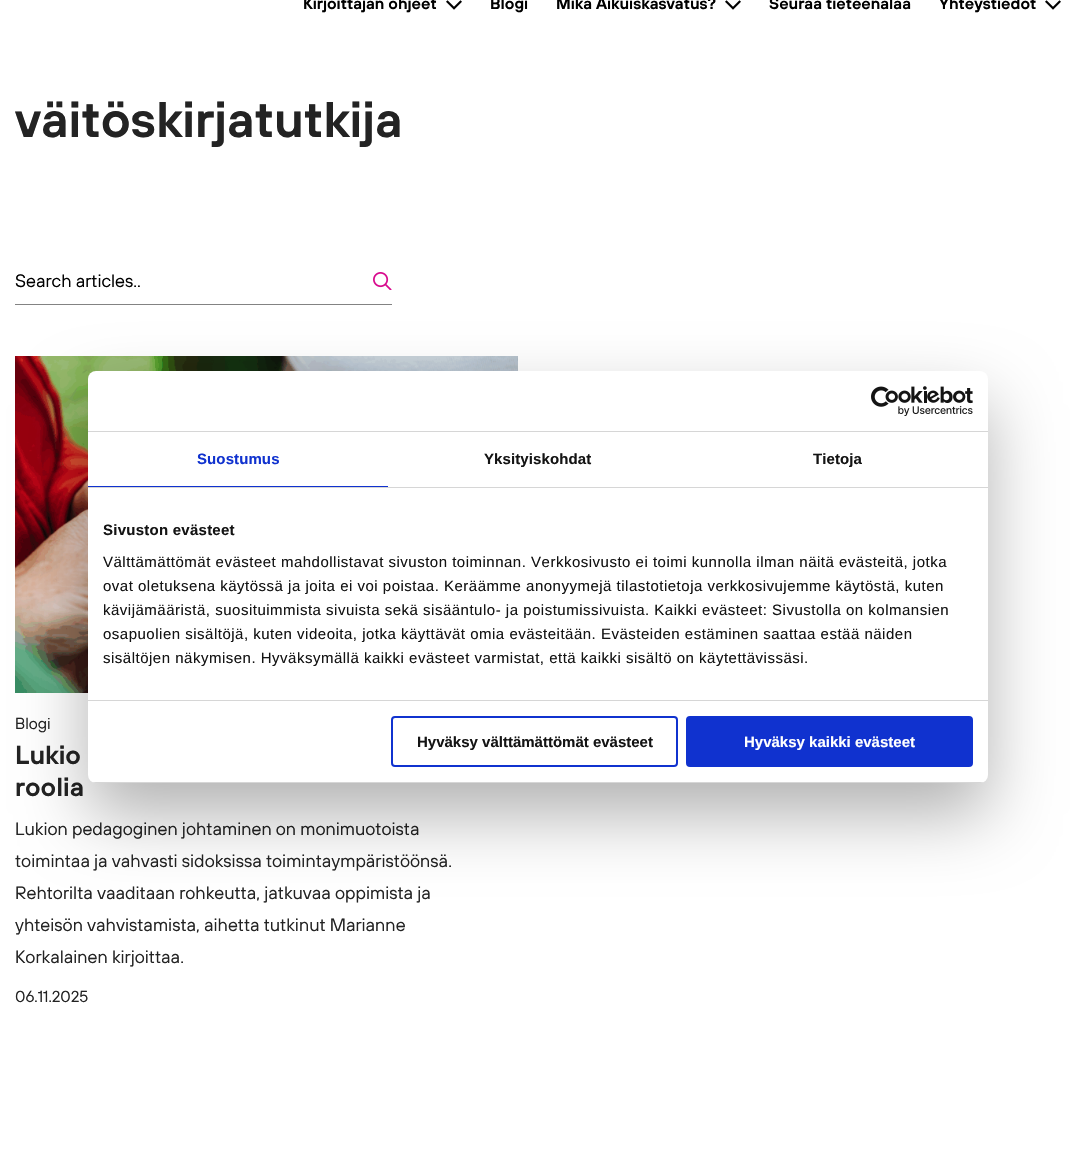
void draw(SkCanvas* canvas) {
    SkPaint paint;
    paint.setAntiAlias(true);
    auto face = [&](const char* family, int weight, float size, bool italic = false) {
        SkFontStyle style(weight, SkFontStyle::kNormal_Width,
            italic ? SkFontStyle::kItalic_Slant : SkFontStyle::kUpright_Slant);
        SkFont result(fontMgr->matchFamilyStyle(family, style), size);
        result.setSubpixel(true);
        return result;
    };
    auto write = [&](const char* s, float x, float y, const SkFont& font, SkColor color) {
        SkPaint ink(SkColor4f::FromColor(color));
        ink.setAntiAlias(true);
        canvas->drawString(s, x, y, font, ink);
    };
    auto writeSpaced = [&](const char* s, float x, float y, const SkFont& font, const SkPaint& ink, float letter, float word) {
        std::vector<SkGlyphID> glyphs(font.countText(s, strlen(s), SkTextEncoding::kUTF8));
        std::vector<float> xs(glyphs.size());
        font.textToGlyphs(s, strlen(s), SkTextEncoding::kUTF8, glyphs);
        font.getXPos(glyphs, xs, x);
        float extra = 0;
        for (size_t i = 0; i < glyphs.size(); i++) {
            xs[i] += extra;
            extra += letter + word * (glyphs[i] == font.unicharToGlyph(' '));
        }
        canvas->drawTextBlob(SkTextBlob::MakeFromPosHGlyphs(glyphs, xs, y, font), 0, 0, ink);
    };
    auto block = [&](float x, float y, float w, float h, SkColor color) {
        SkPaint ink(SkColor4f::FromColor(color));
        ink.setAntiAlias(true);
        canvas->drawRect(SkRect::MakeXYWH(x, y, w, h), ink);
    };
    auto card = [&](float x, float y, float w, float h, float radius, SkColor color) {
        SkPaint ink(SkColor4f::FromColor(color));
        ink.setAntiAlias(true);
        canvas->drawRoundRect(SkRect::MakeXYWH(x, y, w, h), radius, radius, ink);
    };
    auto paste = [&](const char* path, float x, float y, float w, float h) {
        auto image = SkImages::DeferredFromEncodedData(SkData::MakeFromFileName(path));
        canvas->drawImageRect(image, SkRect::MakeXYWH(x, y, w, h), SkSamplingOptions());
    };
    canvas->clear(SK_ColorWHITE);
    auto kFont1 = face("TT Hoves", 600, 16);
    write("Kirjoittajan ohjeet", 303, 9, kFont1, SK_ColorBLACK);
    paste("pic1.png", 446, 0, 16, 10);
    write("Blogi", 490, 9, kFont1, SK_ColorBLACK);
    write("Mikä Aikuiskasvatus?", 556, 9, kFont1, SK_ColorBLACK);
    paste("pic1.png", 725, 0, 16, 10);
    write("Seuraa tieteenalaa", 769, 9, kFont1, SK_ColorBLACK);
    write("Yhteystiedot", 939, 9, kFont1, SK_ColorBLACK);
    paste("pic1.png", 1045, 0, 16, 10);
    auto kFont2 = face("TT Hoves", 600, 50);
    write("väitöskirjatutkija", 15, 137, kFont2, SkColorSetRGB(35, 35, 35));
    block(15, 304, 377, 1, SkColorSetRGB(131, 131, 131));
    auto kFont3 = face("TT Hoves", 400, 18);
    write("Search articles..", 15, 287, kFont3, SK_ColorBLACK);
    paste("pic2.png", 373, 272, 19, 18);
    paste("pic3.png", 15, 356, 503, 337);
    auto kFont4 = face("TT Hoves", 400, 16);
    write("Blogi", 15, 729, kFont4, SkColorSetRGB(35, 35, 35));
    auto kFont5 = face("TT Hoves", 600, 26);
    write("Lukio", 15, 764, kFont5, SkColorSetRGB(35, 35, 35));
    write("roolia", 15, 796, kFont5, SkColorSetRGB(35, 35, 35));
    write("Lukion pedagoginen johtaminen on monimuotoista", 15, 835, kFont3, SkColorSetRGB(35, 35, 35));
    write("toimintaa ja vahvasti sidoksissa toimintaympäristöönsä.", 15, 867, kFont3, SkColorSetRGB(35, 35, 35));
    write("Rehtorilta vaaditaan rohkeutta, jatkuvaa oppimista ja", 15, 899, kFont3, SkColorSetRGB(35, 35, 35));
    write("yhteisön vahvistamista, aihetta tutkinut Marianne", 15, 931, kFont3, SkColorSetRGB(35, 35, 35));
    write("Korkalainen kirjoittaa.", 15, 963, kFont3, SkColorSetRGB(35, 35, 35));
    write("06.11.2025", 15, 1002, kFont4, SkColorSetRGB(35, 35, 35));
    paint.setColor(SkColorSetARGB(77, 0, 0, 0));
    paint.setMaskFilter(SkMaskFilter::MakeBlur(kNormal_SkBlurStyle, 34));
    canvas->drawRoundRect(SkRect::MakeXYWH(88, 403, 900, 412), 8, 8, paint);
    paint.setMaskFilter(nullptr);
    card(88, 371, 900, 412, 8, SK_ColorWHITE);
    block(88, 431, 900, 1, SkColorSetRGB(214, 214, 214));
    paste("pic4.png", 871, 386, 102, 30);
    block(88, 487, 900, 1, SkColorSetRGB(214, 214, 214));
    block(88, 486, 300, 1, SkColorSetRGB(16, 50, 207));
    auto kFont6 = face("Liberation Sans", 700, 15);
    paint.setColor(SkColorSetRGB(16, 50, 207));
    writeSpaced("Suostumus", 197, 464, kFont6, paint, 0.1f, 0);
    paint.setColor(SkColorSetRGB(20, 20, 20));
    writeSpaced("Yksityiskohdat", 484, 464, kFont6, paint, 0.1f, 0);
    writeSpaced("Tietoja", 813, 464, kFont6, paint, 0.1f, 0);
    block(88, 700, 900, 1, SkColorSetRGB(214, 214, 214));
    writeSpaced("Sivuston evästeet", 103, 535, kFont6, paint, 0.25f, 0);
    auto kFont7 = face("Liberation Sans", 400, 15);
    writeSpaced("Välttämättömät evästeet mahdollistavat sivuston toiminnan. Verkkosivusto ei toimi kunnolla ilman näitä evästeitä, jotka", 103, 567, kFont7, paint, 0.5f, 0);
    writeSpaced("ovat oletuksena käytössä ja joita ei voi poistaa. Keräämme anonyymejä tilastotietoja verkkosivujemme käytöstä, kuten", 103, 591, kFont7, paint, 0.5f, 0);
    writeSpaced("kävijämääristä, suosituimmista sivuista sekä sisääntulo- ja poistumissivuista. Kaikki evästeet: Sivustolla on kolmansien", 103, 615, kFont7, paint, 0.5f, 0);
    writeSpaced("osapuolien sisältöjä, kuten videoita, jotka käyttävät omia evästeitään. Evästeiden estäminen saattaa estää näiden", 103, 639, kFont7, paint, 0.5f, 0);
    writeSpaced("sisältöjen näkymisen. Hyväksymällä kaikki evästeet varmistat, että kaikki sisältö on käytettävissäsi.", 103, 663, kFont7, paint, 0.5f, 0);
    canvas->save();
    canvas->clipPath(SkPathBuilder().moveTo(96, 371).lineTo(980, 371).cubicTo(984.5f, 371, 988, 374.5f, 988, 379).lineTo(988, 775).cubicTo(988, 779.5f, 984.5f, 783, 980, 783).lineTo(96, 783).cubicTo(91.5f, 783, 88, 779.5f, 88, 775).lineTo(88, 379).cubicTo(88, 374.5f, 91.5f, 371, 96, 371).close().detach(), true);
    block(88, 782, 900, 1, SkColorSetRGB(214, 214, 214));
    canvas->restore();
    paint.setStyle(SkPaint::kStroke_Style);
    paint.setStrokeWidth(2);
    paint.setColor(SkColorSetRGB(16, 50, 207));
    canvas->drawRoundRect(SkRect::MakeXYWH(392, 717, 285, 49), 3, 3, paint);
    write("Hyväksy välttämättömät evästeet", 417, 747, kFont6, SkColorSetRGB(20, 20, 20));
    paint.setStyle(SkPaint::kFill_Style);
    canvas->drawRoundRect(SkRect::MakeXYWH(687, 717, 285, 49), 3, 3, paint);
    paint.setStyle(SkPaint::kStroke_Style);
    canvas->drawRoundRect(SkRect::MakeXYWH(687, 717, 285, 49), 3, 3, paint);
    write("Hyväksy kaikki evästeet", 744, 747, kFont6, SK_ColorWHITE);
}
